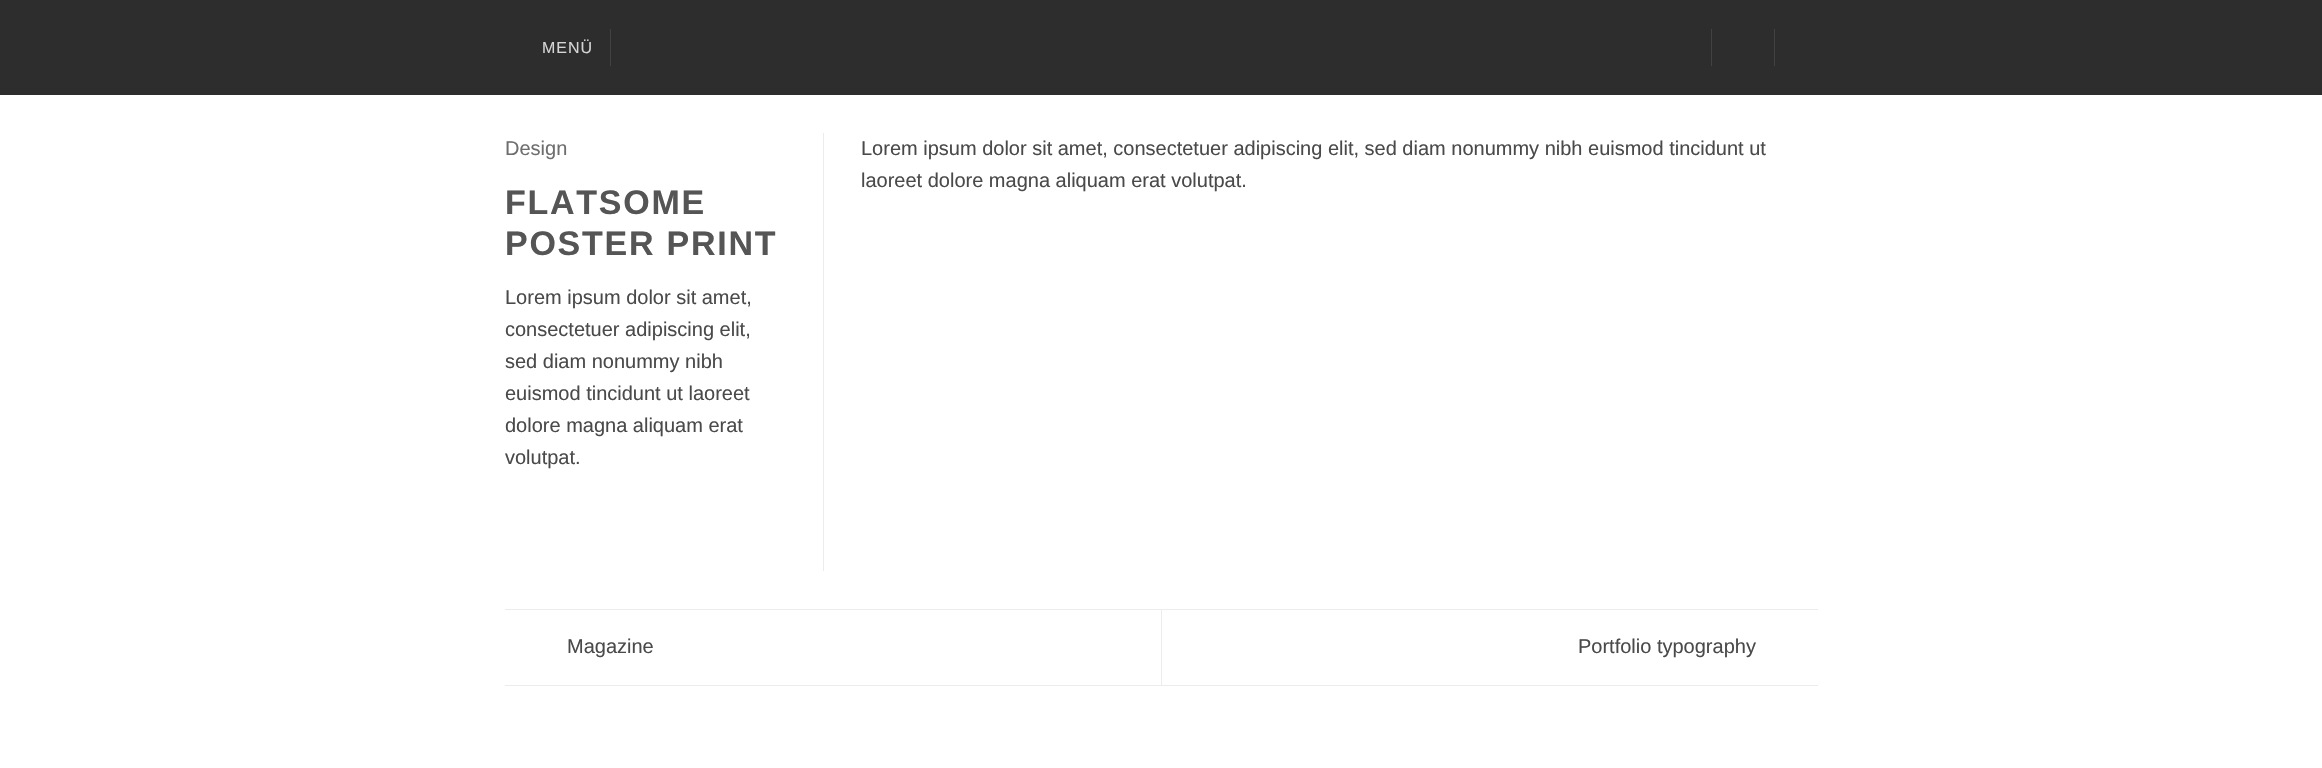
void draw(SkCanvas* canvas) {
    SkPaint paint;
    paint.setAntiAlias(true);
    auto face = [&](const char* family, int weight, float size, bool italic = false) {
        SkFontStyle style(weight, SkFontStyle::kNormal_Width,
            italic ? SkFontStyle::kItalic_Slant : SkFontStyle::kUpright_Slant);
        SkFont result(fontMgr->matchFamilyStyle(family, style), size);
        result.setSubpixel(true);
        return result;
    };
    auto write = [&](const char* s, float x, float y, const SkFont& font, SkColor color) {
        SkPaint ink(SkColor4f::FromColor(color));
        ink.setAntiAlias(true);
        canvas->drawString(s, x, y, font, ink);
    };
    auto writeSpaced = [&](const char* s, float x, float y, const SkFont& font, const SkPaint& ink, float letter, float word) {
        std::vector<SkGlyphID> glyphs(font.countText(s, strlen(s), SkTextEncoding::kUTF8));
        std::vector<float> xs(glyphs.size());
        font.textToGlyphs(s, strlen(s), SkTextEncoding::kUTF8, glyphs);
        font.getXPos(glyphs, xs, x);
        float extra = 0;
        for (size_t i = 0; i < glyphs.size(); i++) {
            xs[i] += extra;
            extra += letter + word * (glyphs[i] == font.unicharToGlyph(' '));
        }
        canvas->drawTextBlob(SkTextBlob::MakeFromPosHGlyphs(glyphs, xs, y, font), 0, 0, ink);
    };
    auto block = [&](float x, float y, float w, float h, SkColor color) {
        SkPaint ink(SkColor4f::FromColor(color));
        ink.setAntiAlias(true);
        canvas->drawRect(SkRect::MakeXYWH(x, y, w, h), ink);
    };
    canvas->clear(SK_ColorWHITE);
    block(0, 0, 2322, 95, SkColorSetRGB(45, 45, 45));
    auto kFont1 = face("Liberation Sans", 400, 16);
    paint.setColor(SkColorSetRGB(213, 213, 213));
    writeSpaced("MENÜ", 542, 53, kFont1, paint, 1, 0);
    block(610, 29, 1, 37, SkColorSetRGB(66, 66, 66));
    block(1711, 29, 1, 37, SkColorSetRGB(66, 66, 66));
    block(1774, 29, 1, 37, SkColorSetRGB(66, 66, 66));
    block(823, 133, 1, 438, SkColorSetRGB(236, 236, 236));
    auto kFont2 = face("Liberation Sans", 400, 20);
    write("Design", 505, 155, kFont2, SkColorSetRGB(110, 110, 110));
    auto kFont3 = face("Liberation Sans", 700, 34);
    paint.setColor(SkColorSetRGB(85, 85, 85));
    writeSpaced("FLATSOME", 505, 214, kFont3, paint, 1.75f, 0);
    writeSpaced("POSTER PRINT", 505, 255, kFont3, paint, 1.75f, 0);
    write("Lorem ipsum dolor sit amet,", 505, 304, kFont2, SkColorSetRGB(74, 74, 74));
    write("consectetuer adipiscing elit,", 505, 336, kFont2, SkColorSetRGB(74, 74, 74));
    write("sed diam nonummy nibh", 505, 368, kFont2, SkColorSetRGB(74, 74, 74));
    write("euismod tincidunt ut laoreet", 505, 400, kFont2, SkColorSetRGB(74, 74, 74));
    write("dolore magna aliquam erat", 505, 432, kFont2, SkColorSetRGB(74, 74, 74));
    write("volutpat.", 505, 464, kFont2, SkColorSetRGB(74, 74, 74));
    write("Lorem ipsum dolor sit amet, consectetuer adipiscing elit, sed diam nonummy nibh euismod tincidunt ut", 861, 155, kFont2, SkColorSetRGB(74, 74, 74));
    write("laoreet dolore magna aliquam erat volutpat.", 861, 187, kFont2, SkColorSetRGB(74, 74, 74));
    block(505, 609, 1313, 1, SkColorSetRGB(236, 236, 236));
    block(505, 685, 1313, 1, SkColorSetRGB(236, 236, 236));
    write("Magazine", 567, 653, kFont2, SkColorSetRGB(74, 74, 74));
    block(1161, 610, 1, 75, SkColorSetRGB(236, 236, 236));
    write("Portfolio typography", 1578, 653, kFont2, SkColorSetRGB(74, 74, 74));
}
